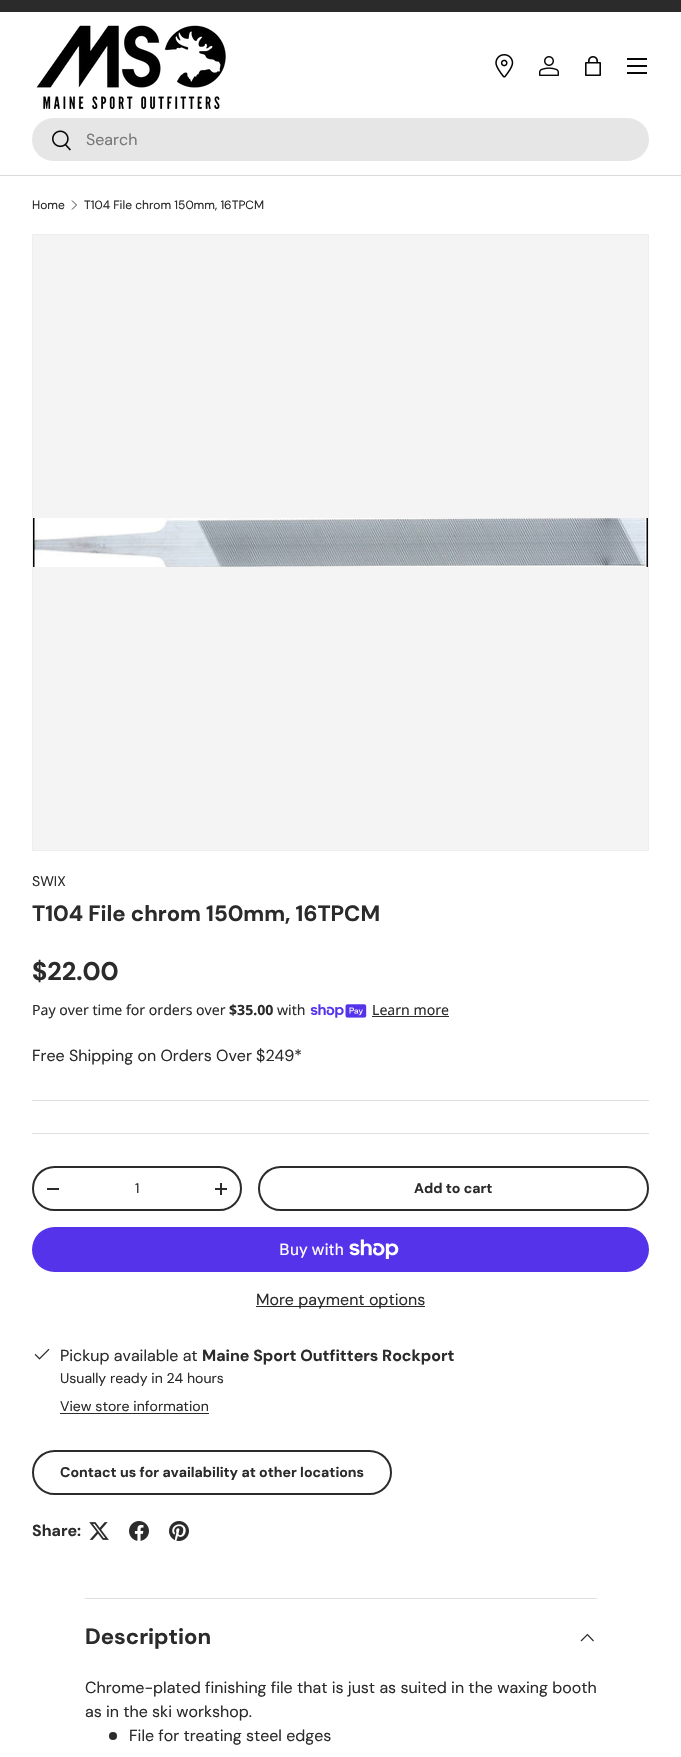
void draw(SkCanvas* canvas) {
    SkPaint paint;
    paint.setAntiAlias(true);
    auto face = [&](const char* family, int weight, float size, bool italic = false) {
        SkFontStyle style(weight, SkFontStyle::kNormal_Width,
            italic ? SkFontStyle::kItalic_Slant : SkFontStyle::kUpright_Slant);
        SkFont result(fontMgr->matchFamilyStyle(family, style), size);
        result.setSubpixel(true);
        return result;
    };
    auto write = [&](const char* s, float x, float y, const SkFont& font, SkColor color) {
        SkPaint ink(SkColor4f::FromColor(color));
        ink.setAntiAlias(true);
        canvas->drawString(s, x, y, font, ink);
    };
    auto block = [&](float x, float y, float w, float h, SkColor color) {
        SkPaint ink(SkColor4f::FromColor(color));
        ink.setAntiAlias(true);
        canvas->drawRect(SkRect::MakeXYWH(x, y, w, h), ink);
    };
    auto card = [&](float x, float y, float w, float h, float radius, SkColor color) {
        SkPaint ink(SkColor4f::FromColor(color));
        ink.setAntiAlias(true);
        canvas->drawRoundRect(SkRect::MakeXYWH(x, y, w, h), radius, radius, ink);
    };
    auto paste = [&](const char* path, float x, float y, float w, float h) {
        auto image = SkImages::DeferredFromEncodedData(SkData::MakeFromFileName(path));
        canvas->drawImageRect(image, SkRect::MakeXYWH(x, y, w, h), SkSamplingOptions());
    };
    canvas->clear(SK_ColorWHITE);
    block(0, 0, 681, 12, SkColorSetRGB(42, 43, 42));
    block(0, 175, 681, 1, SkColorSetRGB(218, 218, 218));
    paste("pic1.png", 36, 25, 190, 85);
    paste("pic2.png", 495, 54, 19, 24);
    paste("pic3.png", 539, 56, 20, 20);
    paste("pic4.png", 585, 56, 16, 20);
    block(627, 58, 20, 2, SkColorSetRGB(7, 7, 7));
    block(627, 72, 20, 2, SkColorSetRGB(7, 7, 7));
    block(627, 65, 20, 2, SkColorSetRGB(7, 7, 7));
    card(32, 118, 617, 43, 21.5f, SkColorSetRGB(230, 230, 230));
    paste("pic5.png", 52, 130, 19, 21);
    auto kFont1 = face("DM Sans", 400, 16);
    write("Search", 86, 145, kFont1, SkColorSetRGB(119, 119, 119));
    auto kFont2 = face("DM Sans", 400, 12);
    write("Home", 32, 209, kFont2, SkColorSetRGB(42, 43, 42));
    paint.setStyle(SkPaint::kStroke_Style);
    paint.setStrokeWidth(0.9f);
    paint.setColor(SkColorSetRGB(42, 43, 42));
    canvas->drawPath(SkPathBuilder().moveTo(72, 200.5f).lineTo(76.5f, 205).lineTo(72, 209.5f).detach(), paint);
    write("T104 File chrom 150mm, 16TPCM", 84, 209, kFont2, SkColorSetRGB(42, 43, 42));
    paint.setStyle(SkPaint::kFill_Style);
    paint.setColor(SkColorSetRGB(244, 244, 244));
    canvas->drawRect(SkRect::MakeXYWH(32.5f, 234.5f, 616, 616), paint);
    paint.setStyle(SkPaint::kStroke_Style);
    paint.setStrokeWidth(1);
    paint.setColor(SkColorSetRGB(238, 238, 238));
    canvas->drawRect(SkRect::MakeXYWH(32.5f, 234.5f, 616, 616), paint);
    paste("pic6.png", 33, 518, 615, 49);
    auto kFont3 = face("DM Sans", 400, 14.1f);
    write("SWIX", 32, 886, kFont3, SkColorSetRGB(42, 43, 42));
    auto kFont4 = face("DM Sans", 700, 22.1f);
    write("T104 File chrom 150mm, 16TPCM", 32, 921, kFont4, SkColorSetRGB(42, 43, 42));
    auto kFont5 = face("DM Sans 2", 700, 25.5f);
    write("$22.00", 32, 980, kFont5, SkColorSetRGB(42, 43, 42));
    auto kFont6 = face("Noto Sans", 400, 14.1f);
    write("Pay over time for orders over", 32, 1015, kFont6, SkColorSetRGB(42, 43, 42));
    auto kFont7 = face("Noto Sans", 700, 14.1f);
    write("$35.00", 229, 1015, kFont7, SkColorSetRGB(42, 43, 42));
    write("with", 277, 1015, kFont6, SkColorSetRGB(42, 43, 42));
    paste("pic7.png", 310, 1004, 57, 14);
    write("Learn more", 372, 1015, kFont6, SkColorSetRGB(42, 43, 42));
    block(372, 1016, 77, 1, SkColorSetRGB(42, 43, 42));
    write("Free Shipping on Orders Over $249*", 32, 1061, kFont1, SkColorSetRGB(42, 43, 42));
    block(32, 1100, 617, 1, SkColorSetRGB(223, 223, 223));
    block(32, 1133, 617, 1, SkColorSetRGB(223, 223, 223));
    paint.setStrokeWidth(2);
    paint.setColor(SkColorSetRGB(42, 43, 42));
    canvas->drawRoundRect(SkRect::MakeXYWH(33, 1167, 208, 43), 21.5f, 21.5f, paint);
    block(47, 1188, 12, 2, SkColorSetRGB(42, 43, 42));
    write("1", 135, 1193, kFont3, SkColorSetRGB(42, 43, 42));
    block(215, 1188, 12, 2, SkColorSetRGB(42, 43, 42));
    block(220, 1183, 2, 12, SkColorSetRGB(42, 43, 42));
    canvas->drawRoundRect(SkRect::MakeXYWH(259, 1167, 389, 43), 21.5f, 21.5f, paint);
    auto kFont8 = face("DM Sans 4", 700, 14.1f);
    write("Add to cart", 414, 1193, kFont8, SkColorSetRGB(42, 43, 42));
    card(32, 1227, 617, 45, 22.5f, SkColorSetRGB(84, 51, 235));
    auto kFont9 = face("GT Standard", 400, 16);
    write("Buy with", 279, 1255, kFont9, SK_ColorWHITE);
    paste("pic8.png", 349, 1239, 50, 20);
    block(256, 1306, 169, 1, SkColorSetRGB(42, 43, 42));
    write("More payment options", 256, 1305, kFont1, SkColorSetRGB(42, 43, 42));
    paste("pic9.png", 34, 1348, 16, 12);
    write("Pickup available at", 60, 1361, kFont1, SkColorSetRGB(42, 43, 42));
    auto kFont10 = face("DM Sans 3", 700, 16);
    write("Maine Sport Outfitters Rockport", 202, 1361, kFont10, SkColorSetRGB(42, 43, 42));
    write("Usually ready in 24 hours", 60, 1383, kFont3, SkColorSetRGB(42, 43, 42));
    write("View store information", 60, 1411, kFont3, SkColorSetRGB(42, 43, 42));
    block(60, 1413, 149, 1, SkColorSetRGB(42, 43, 42));
    canvas->drawRoundRect(SkRect::MakeXYWH(33, 1451, 358, 43), 21.5f, 21.5f, paint);
    write("Contact us for availability at other locations", 60, 1477, kFont8, SkColorSetRGB(42, 43, 42));
    write("Share:", 32, 1536, kFont10, SkColorSetRGB(42, 43, 42));
    paste("pic10.png", 89, 1522, 20, 18);
    paste("pic11.png", 129, 1521, 20, 20);
    paste("pic12.png", 169, 1521, 20, 20);
    block(85, 1598, 512, 1, SkColorSetRGB(223, 223, 223));
    write("Description", 85, 1644, kFont4, SkColorSetRGB(42, 43, 42));
    paint.setStrokeWidth(1.2f);
    canvas->drawPath(SkPathBuilder().moveTo(593.5f, 1641).lineTo(587.5f, 1634.5f).lineTo(581, 1641).detach(), paint);
    write("Chrome-plated finishing file that is just as suited in the waxing booth", 85, 1693, kFont1, SkColorSetRGB(42, 43, 42));
    write("as in the ski workshop.", 85, 1717, kFont1, SkColorSetRGB(42, 43, 42));
    paint.setStyle(SkPaint::kFill_Style);
    canvas->drawCircle(113, 1736, 4, paint);
    write("File for treating steel edges", 129, 1741, kFont1, SkColorSetRGB(42, 43, 42));
}
